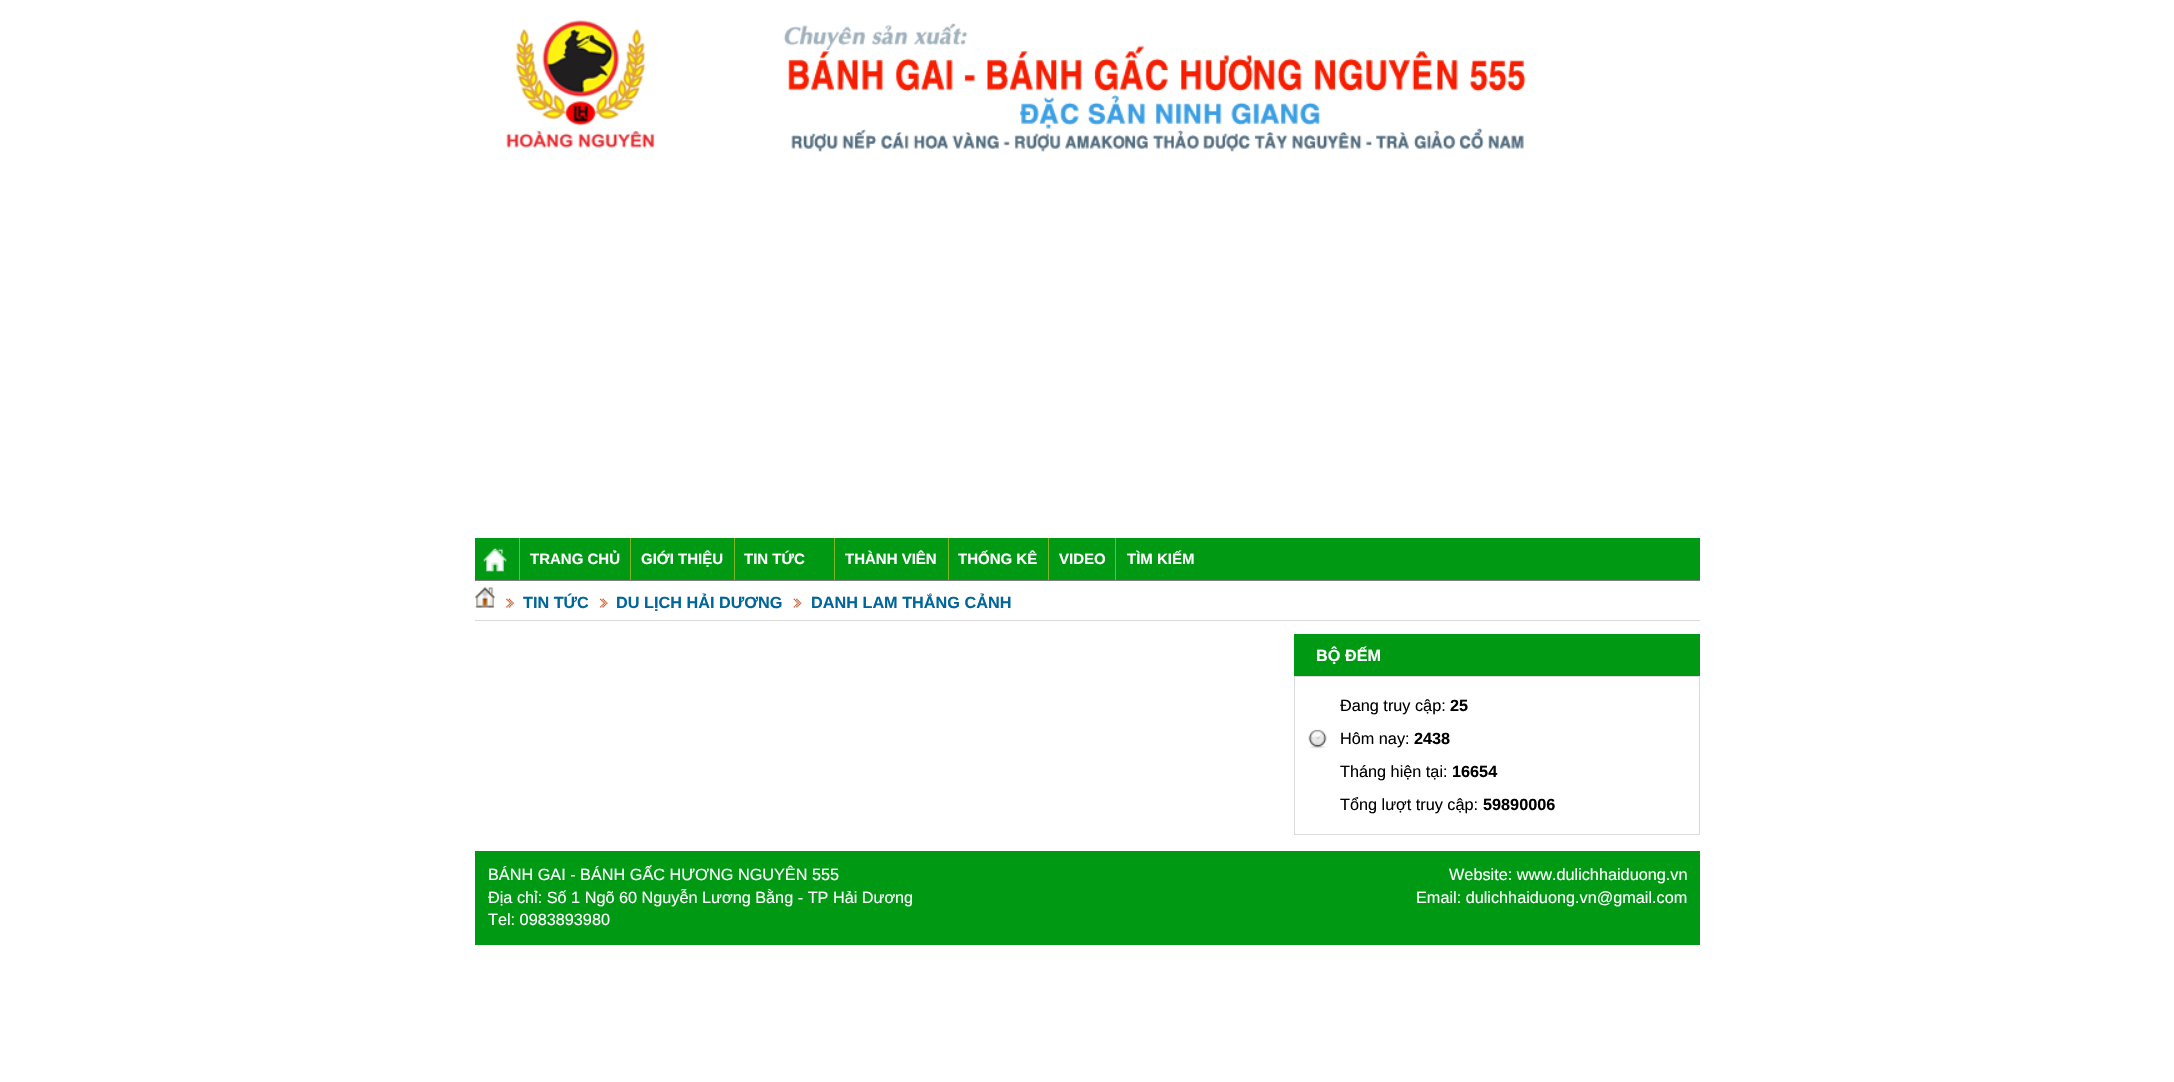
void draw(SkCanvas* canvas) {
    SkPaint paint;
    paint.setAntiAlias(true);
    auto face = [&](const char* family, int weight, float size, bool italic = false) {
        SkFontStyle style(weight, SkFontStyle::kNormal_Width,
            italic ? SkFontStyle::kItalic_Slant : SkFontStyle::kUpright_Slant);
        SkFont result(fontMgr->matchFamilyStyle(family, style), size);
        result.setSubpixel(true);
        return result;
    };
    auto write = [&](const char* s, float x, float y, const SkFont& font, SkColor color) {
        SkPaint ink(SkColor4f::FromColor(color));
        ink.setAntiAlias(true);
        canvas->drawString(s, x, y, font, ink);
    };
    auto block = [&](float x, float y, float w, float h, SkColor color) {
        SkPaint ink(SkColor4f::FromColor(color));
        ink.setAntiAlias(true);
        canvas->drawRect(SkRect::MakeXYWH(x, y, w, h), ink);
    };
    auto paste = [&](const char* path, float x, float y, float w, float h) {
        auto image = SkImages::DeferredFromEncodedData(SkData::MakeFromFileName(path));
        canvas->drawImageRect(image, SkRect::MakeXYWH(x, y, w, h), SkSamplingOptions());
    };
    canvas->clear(SK_ColorWHITE);
    paste("pic1.png", 506, 20, 149, 128);
    paste("pic2.png", 783, 23, 743, 129);
    block(475, 538, 1225, 42, SkColorSetRGB(0, 153, 20));
    block(475, 580, 1225, 1, SkColorSetRGB(128, 128, 128));
    paste("pic3.png", 483, 548, 24, 24);
    block(519, 538, 1, 42, SkColorSetRGB(128, 182, 36));
    auto kFont1 = face("Liberation Sans", 700, 15);
    write("TRANG CHỦ", 530, 564, kFont1, SK_ColorWHITE);
    block(630, 538, 1, 42, SkColorSetRGB(128, 182, 36));
    write("GIỚI THIỆU", 641, 564, kFont1, SK_ColorWHITE);
    block(734, 538, 1, 42, SkColorSetRGB(128, 182, 36));
    write("TIN TỨC", 744, 564, kFont1, SK_ColorWHITE);
    block(834, 538, 1, 42, SkColorSetRGB(128, 182, 36));
    write("THÀNH VIÊN", 845, 564, kFont1, SK_ColorWHITE);
    block(948, 538, 1, 42, SkColorSetRGB(128, 182, 36));
    write("THỐNG KÊ", 958, 564, kFont1, SK_ColorWHITE);
    block(1048, 538, 1, 42, SkColorSetRGB(128, 182, 36));
    write("VIDEO", 1059, 564, kFont1, SK_ColorWHITE);
    block(1115, 538, 1, 42, SkColorSetRGB(128, 182, 36));
    write("TÌM KIẾM", 1127, 564, kFont1, SK_ColorWHITE);
    block(475, 620, 1225, 1, SkColorSetRGB(218, 218, 218));
    paste("pic4.png", 475, 587, 20, 21);
    paste("pic5.png", 506, 598, 8, 10);
    auto kFont2 = face("Liberation Sans", 700, 16.25f);
    write("TIN TỨC", 523, 608, kFont2, SkColorSetRGB(0, 102, 153));
    paste("pic6.png", 599, 598, 9, 10);
    write("DU LỊCH HẢI DƯƠNG", 616, 608, kFont2, SkColorSetRGB(0, 102, 153));
    paste("pic7.png", 793, 598, 9, 10);
    write("DANH LAM THẮNG CẢNH", 811, 608, kFont2, SkColorSetRGB(0, 102, 153));
    block(1294, 634, 406, 42, SkColorSetRGB(0, 153, 20));
    write("BỘ ĐẾM", 1316, 661, kFont2, SK_ColorWHITE);
    paint.setStyle(SkPaint::kStroke_Style);
    paint.setStrokeWidth(1);
    paint.setColor(SkColorSetRGB(218, 218, 218));
    canvas->drawRect(SkRect::MakeXYWH(1294.5f, 676.5f, 405, 158), paint);
    auto kFont3 = face("Liberation Sans", 400, 16.25f);
    write("Đang truy cập:", 1340, 711, kFont3, SK_ColorBLACK);
    write("25", 1450, 711, kFont2, SK_ColorBLACK);
    paste("pic8.png", 1308, 729, 19, 20);
    write("Hôm nay:", 1340, 744, kFont3, SK_ColorBLACK);
    write("2438", 1414, 744, kFont2, SK_ColorBLACK);
    write("Tháng hiện tại:", 1340, 777, kFont3, SK_ColorBLACK);
    write("16654", 1452, 777, kFont2, SK_ColorBLACK);
    write("Tổng lượt truy cập:", 1340, 810, kFont3, SK_ColorBLACK);
    write("59890006", 1483, 810, kFont2, SK_ColorBLACK);
    block(475, 851, 1225, 94, SkColorSetRGB(0, 153, 20));
    write("BÁNH GAI - BÁNH GẤC HƯƠNG NGUYÊN 555", 488, 880, kFont3, SK_ColorWHITE);
    write("Địa chỉ: Số 1 Ngõ 60 Nguyễn Lương Bằng - TP Hải Dương", 488, 903, kFont3, SK_ColorWHITE);
    write("Tel: 0983893980", 488, 925, kFont3, SK_ColorWHITE);
    write("Website: www.dulichhaiduong.vn", 1449, 880, kFont3, SK_ColorWHITE);
    write("Email: dulichhaiduong.vn@gmail.com", 1416, 903, kFont3, SK_ColorWHITE);
}
